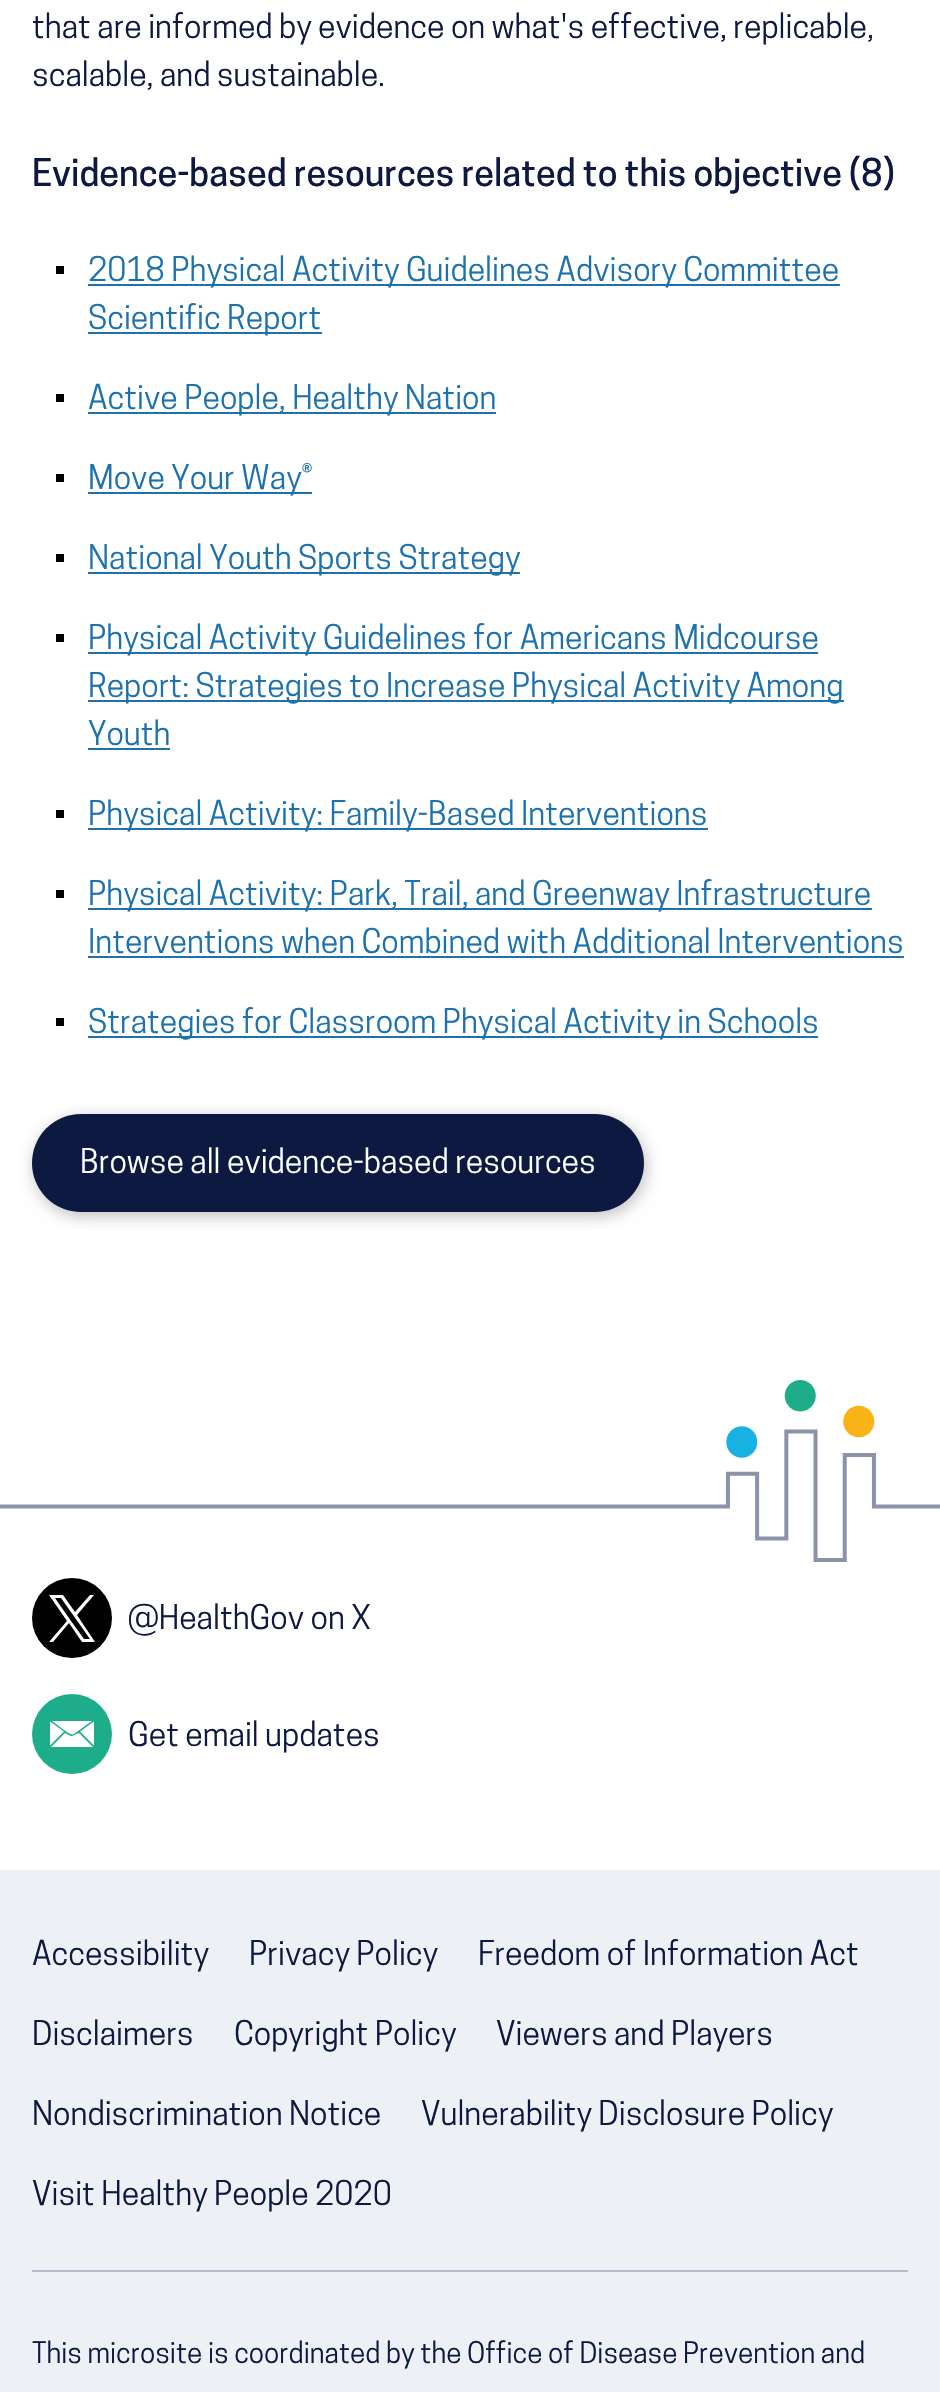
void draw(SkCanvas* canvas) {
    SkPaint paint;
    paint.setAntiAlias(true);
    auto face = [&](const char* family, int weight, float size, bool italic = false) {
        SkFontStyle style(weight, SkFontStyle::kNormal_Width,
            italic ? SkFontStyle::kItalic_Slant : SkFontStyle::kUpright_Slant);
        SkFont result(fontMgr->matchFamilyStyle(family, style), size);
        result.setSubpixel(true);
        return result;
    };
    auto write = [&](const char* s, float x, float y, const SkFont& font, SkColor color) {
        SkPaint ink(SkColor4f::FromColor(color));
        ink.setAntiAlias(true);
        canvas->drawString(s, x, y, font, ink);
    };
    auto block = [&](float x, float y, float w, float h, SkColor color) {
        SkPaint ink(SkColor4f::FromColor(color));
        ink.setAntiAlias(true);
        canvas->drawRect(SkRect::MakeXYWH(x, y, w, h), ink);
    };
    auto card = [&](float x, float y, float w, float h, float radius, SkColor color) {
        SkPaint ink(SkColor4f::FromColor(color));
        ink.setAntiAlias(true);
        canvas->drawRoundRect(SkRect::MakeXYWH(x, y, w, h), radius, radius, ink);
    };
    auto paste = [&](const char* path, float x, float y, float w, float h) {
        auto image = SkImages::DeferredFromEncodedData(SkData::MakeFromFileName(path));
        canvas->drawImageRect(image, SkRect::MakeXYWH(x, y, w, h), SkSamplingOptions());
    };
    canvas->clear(SK_ColorWHITE);
    auto kFont1 = face("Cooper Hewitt", 400, 32);
    write("that are informed by evidence on what's effective, replicable,", 32, 38, kFont1, SkColorSetRGB(13, 25, 65));
    write("scalable, and sustainable.", 32, 86, kFont1, SkColorSetRGB(13, 25, 65));
    auto kFont2 = face("Cooper Hewitt", 500, 36);
    write("Evidence-based resources related to this objective (8)", 32, 186, kFont2, SkColorSetRGB(13, 25, 65));
    block(56, 266, 8, 8, SK_ColorBLACK);
    block(88, 284, 752, 2, SkColorSetRGB(28, 113, 175));
    write("2018 Physical Activity Guidelines Advisory Committee", 88, 281, kFont1, SkColorSetRGB(28, 113, 175));
    block(88, 332, 234, 2, SkColorSetRGB(28, 113, 175));
    write("Scientific Report", 88, 329, kFont1, SkColorSetRGB(28, 113, 175));
    block(56, 394, 8, 8, SK_ColorBLACK);
    block(88, 412, 408, 2, SkColorSetRGB(28, 113, 175));
    write("Active People, Healthy Nation", 88, 409, kFont1, SkColorSetRGB(28, 113, 175));
    block(56, 474, 8, 8, SK_ColorBLACK);
    block(88, 492, 224, 2, SkColorSetRGB(28, 113, 175));
    write("Move Your Way®", 88, 489, kFont1, SkColorSetRGB(28, 113, 175));
    block(56, 554, 8, 8, SK_ColorBLACK);
    block(88, 572, 432, 2, SkColorSetRGB(28, 113, 175));
    write("National Youth Sports Strategy", 88, 569, kFont1, SkColorSetRGB(28, 113, 175));
    block(56, 634, 8, 8, SK_ColorBLACK);
    block(88, 652, 730, 2, SkColorSetRGB(28, 113, 175));
    write("Physical Activity Guidelines for Americans Midcourse", 88, 649, kFont1, SkColorSetRGB(28, 113, 175));
    block(88, 700, 756, 2, SkColorSetRGB(28, 113, 175));
    write("Report: Strategies to Increase Physical Activity Among", 88, 697, kFont1, SkColorSetRGB(28, 113, 175));
    write("Youth", 88, 745, kFont1, SkColorSetRGB(28, 113, 175));
    block(88, 748, 82, 2, SkColorSetRGB(28, 113, 175));
    block(56, 810, 8, 8, SK_ColorBLACK);
    block(88, 828, 620, 2, SkColorSetRGB(28, 113, 175));
    write("Physical Activity: Family-Based Interventions", 88, 825, kFont1, SkColorSetRGB(28, 113, 175));
    block(56, 890, 8, 8, SK_ColorBLACK);
    block(88, 908, 784, 2, SkColorSetRGB(28, 113, 175));
    write("Physical Activity: Park, Trail, and Greenway Infrastructure", 88, 905, kFont1, SkColorSetRGB(28, 113, 175));
    write("Interventions when Combined with Additional Interventions", 88, 953, kFont1, SkColorSetRGB(28, 113, 175));
    block(88, 956, 816, 2, SkColorSetRGB(28, 113, 175));
    block(56, 1018, 8, 8, SK_ColorBLACK);
    block(88, 1036, 730, 2, SkColorSetRGB(28, 113, 175));
    write("Strategies for Classroom Physical Activity in Schools", 88, 1033, kFont1, SkColorSetRGB(28, 113, 175));
    paint.setColor(SkColorSetARGB(64, 0, 0, 0));
    paint.setMaskFilter(SkMaskFilter::MakeBlur(kNormal_SkBlurStyle, 8));
    canvas->drawRoundRect(SkRect::MakeXYWH(34, 1118, 612, 98), 49, 49, paint);
    paint.setMaskFilter(nullptr);
    card(32, 1114, 612, 98, 49, SkColorSetRGB(13, 25, 65));
    write("Browse all evidence-based resources", 80, 1173, kFont1, SK_ColorWHITE);
    paste("pic1.png", 0, 1380, 940, 182);
    paint.setColor(SkColorSetRGB(1, 1, 1));
    canvas->drawCircle(72, 1618, 40, paint);
    paint.setColor(SK_ColorWHITE);
    canvas->drawPath(SkPathBuilder().moveTo(77, 1615).lineTo(94, 1595).lineTo(90, 1595).lineTo(75, 1612).lineTo(63, 1595).lineTo(49, 1595).lineTo(67, 1621).lineTo(49, 1642).lineTo(53, 1642).lineTo(69, 1623).lineTo(82, 1642).lineTo(95, 1642).close().moveTo(71, 1621).lineTo(55, 1598).lineTo(61, 1598).lineTo(90, 1639).lineTo(84, 1639).close().detach(), paint);
    write("@HealthGov on X", 128, 1629, kFont1, SkColorSetRGB(13, 25, 65));
    paint.setColor(SkColorSetRGB(30, 173, 138));
    canvas->drawCircle(72, 1734, 40, paint);
    paint.setColor(SK_ColorWHITE);
    canvas->drawPath(SkPathBuilder().moveTo(50, 1721.5f).lineTo(50, 1745.5f).lineTo(64, 1731.5f).close().moveTo(94, 1745.5f).lineTo(94, 1721.5f).lineTo(80, 1731.5f).close().detach(), paint);
    canvas->drawPath(SkPathBuilder().moveTo(74, 1735).cubicTo(71, 1738, 68, 1734, 65, 1733).lineTo(51, 1747).lineTo(93, 1747).lineTo(79, 1733).close().detach(), paint);
    canvas->drawPath(SkPathBuilder().moveTo(92, 1721).lineTo(52, 1721).lineTo(64, 1730).cubicTo(66, 1731, 71, 1736, 74, 1734).lineTo(78, 1731).close().detach(), paint);
    write("Get email updates", 128, 1746, kFont1, SkColorSetRGB(13, 25, 65));
    block(0, 1870, 940, 522, SkColorSetRGB(237, 241, 245));
    write("Accessibility", 32, 1965, kFont1, SkColorSetRGB(13, 25, 65));
    write("Privacy Policy", 249, 1965, kFont1, SkColorSetRGB(13, 25, 65));
    write("Freedom of Information Act", 478, 1965, kFont1, SkColorSetRGB(13, 25, 65));
    write("Disclaimers", 32, 2045, kFont1, SkColorSetRGB(13, 25, 65));
    write("Copyright Policy", 234, 2045, kFont1, SkColorSetRGB(13, 25, 65));
    write("Viewers and Players", 496, 2045, kFont1, SkColorSetRGB(13, 25, 65));
    write("Nondiscrimination Notice", 32, 2125, kFont1, SkColorSetRGB(13, 25, 65));
    write("Vulnerability Disclosure Policy", 421, 2125, kFont1, SkColorSetRGB(13, 25, 65));
    write("Visit Healthy People 2020", 32, 2205, kFont1, SkColorSetRGB(13, 25, 65));
    block(32, 2270, 876, 2, SkColorSetRGB(178, 187, 201));
    auto kFont3 = face("Cooper Hewitt", 400, 28);
    write("This microsite is coordinated by the Office of Disease Prevention and", 32, 2363, kFont3, SkColorSetRGB(13, 25, 65));
}
